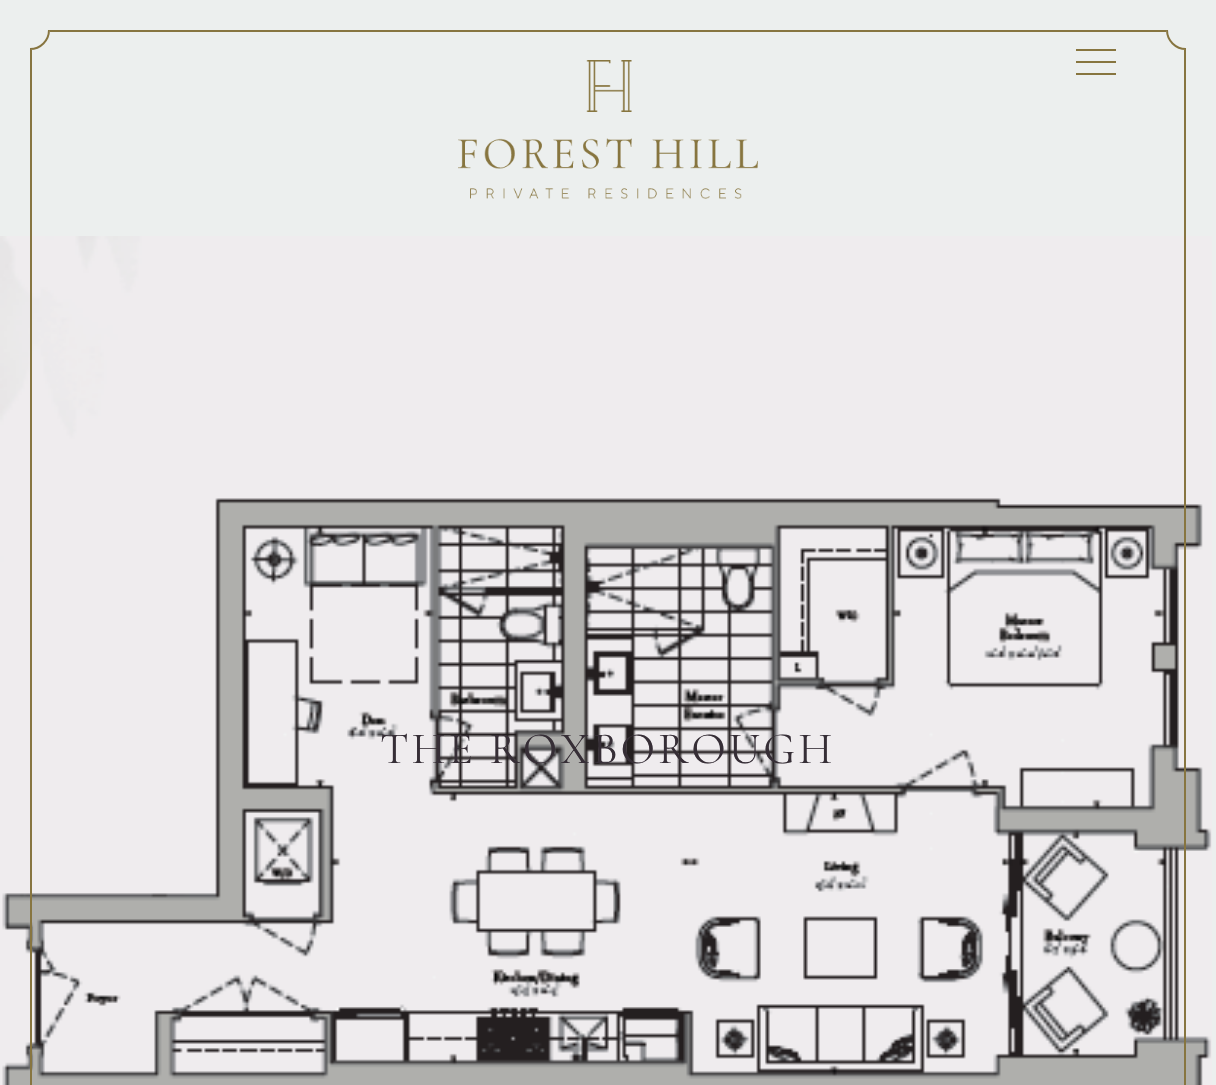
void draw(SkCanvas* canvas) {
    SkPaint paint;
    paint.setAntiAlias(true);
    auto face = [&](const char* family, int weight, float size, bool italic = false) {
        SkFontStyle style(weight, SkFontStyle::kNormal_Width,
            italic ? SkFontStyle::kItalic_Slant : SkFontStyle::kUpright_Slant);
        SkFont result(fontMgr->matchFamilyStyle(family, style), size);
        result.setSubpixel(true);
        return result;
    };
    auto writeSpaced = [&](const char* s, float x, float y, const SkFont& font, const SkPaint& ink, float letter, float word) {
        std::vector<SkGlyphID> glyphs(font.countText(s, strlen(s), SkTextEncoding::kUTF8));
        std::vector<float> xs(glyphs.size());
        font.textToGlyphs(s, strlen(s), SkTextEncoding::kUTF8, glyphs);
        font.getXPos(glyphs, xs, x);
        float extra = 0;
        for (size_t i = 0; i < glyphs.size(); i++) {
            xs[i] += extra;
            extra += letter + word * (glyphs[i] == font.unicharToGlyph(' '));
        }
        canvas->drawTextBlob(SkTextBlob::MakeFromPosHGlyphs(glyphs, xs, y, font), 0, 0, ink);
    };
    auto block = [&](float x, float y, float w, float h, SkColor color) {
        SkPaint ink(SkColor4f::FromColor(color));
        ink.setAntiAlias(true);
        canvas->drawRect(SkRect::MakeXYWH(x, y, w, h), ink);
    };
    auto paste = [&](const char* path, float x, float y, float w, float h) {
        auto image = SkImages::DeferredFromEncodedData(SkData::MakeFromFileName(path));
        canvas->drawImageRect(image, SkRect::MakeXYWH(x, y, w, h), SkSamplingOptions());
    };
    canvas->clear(SkColorSetRGB(236, 239, 238));
    canvas->save();
    canvas->clipRect(SkRect::MakeXYWH(30, 30, 1156, 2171));
    paint.setStyle(SkPaint::kStroke_Style);
    paint.setStrokeWidth(2);
    paint.setColor(SkColorSetRGB(135, 117, 64));
    canvas->drawCircle(30, 30, 19, paint);
    canvas->drawCircle(1186, 30, 19, paint);
    canvas->restore();
    paste("pic2.png", 0, 236, 1212, 849);
    block(30, 50, 2, 1035, SkColorSetRGB(135, 117, 64));
    block(1184, 50, 2, 1035, SkColorSetRGB(135, 117, 64));
    block(50, 30, 1116, 2, SkColorSetRGB(135, 117, 64));
    paste("pic1.png", 458, 60, 300, 139);
    block(1076, 49, 40, 2, SkColorSetRGB(135, 117, 63));
    block(1076, 61, 40, 2, SkColorSetRGB(135, 117, 63));
    block(1076, 73, 40, 2, SkColorSetRGB(135, 117, 63));
    auto kFont1 = face("Cormorant", 400, 45);
    paint.setStyle(SkPaint::kFill_Style);
    paint.setColor(SkColorSetRGB(54, 46, 54));
    writeSpaced("THE ROXBOROUGH", 380, 763, kFont1, paint, 3, 0);
}
